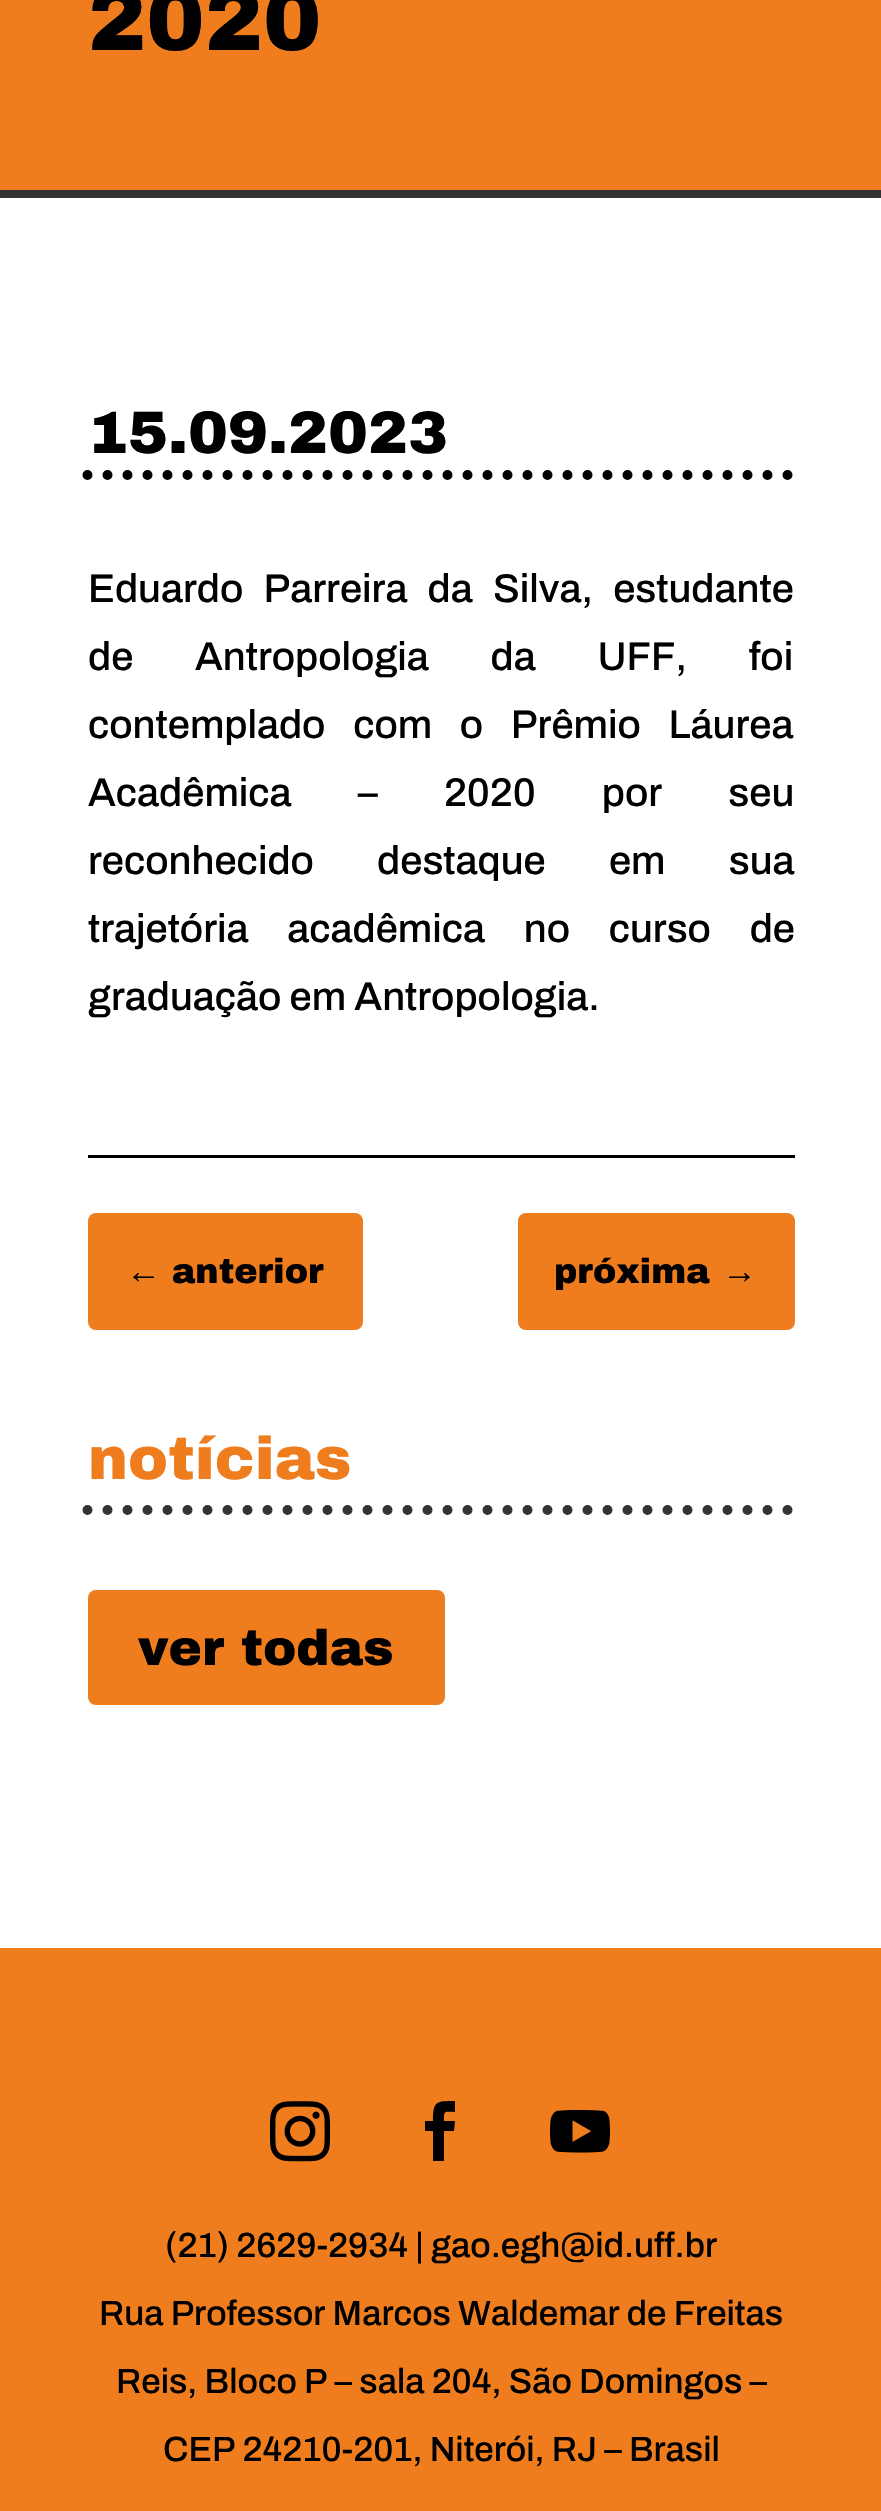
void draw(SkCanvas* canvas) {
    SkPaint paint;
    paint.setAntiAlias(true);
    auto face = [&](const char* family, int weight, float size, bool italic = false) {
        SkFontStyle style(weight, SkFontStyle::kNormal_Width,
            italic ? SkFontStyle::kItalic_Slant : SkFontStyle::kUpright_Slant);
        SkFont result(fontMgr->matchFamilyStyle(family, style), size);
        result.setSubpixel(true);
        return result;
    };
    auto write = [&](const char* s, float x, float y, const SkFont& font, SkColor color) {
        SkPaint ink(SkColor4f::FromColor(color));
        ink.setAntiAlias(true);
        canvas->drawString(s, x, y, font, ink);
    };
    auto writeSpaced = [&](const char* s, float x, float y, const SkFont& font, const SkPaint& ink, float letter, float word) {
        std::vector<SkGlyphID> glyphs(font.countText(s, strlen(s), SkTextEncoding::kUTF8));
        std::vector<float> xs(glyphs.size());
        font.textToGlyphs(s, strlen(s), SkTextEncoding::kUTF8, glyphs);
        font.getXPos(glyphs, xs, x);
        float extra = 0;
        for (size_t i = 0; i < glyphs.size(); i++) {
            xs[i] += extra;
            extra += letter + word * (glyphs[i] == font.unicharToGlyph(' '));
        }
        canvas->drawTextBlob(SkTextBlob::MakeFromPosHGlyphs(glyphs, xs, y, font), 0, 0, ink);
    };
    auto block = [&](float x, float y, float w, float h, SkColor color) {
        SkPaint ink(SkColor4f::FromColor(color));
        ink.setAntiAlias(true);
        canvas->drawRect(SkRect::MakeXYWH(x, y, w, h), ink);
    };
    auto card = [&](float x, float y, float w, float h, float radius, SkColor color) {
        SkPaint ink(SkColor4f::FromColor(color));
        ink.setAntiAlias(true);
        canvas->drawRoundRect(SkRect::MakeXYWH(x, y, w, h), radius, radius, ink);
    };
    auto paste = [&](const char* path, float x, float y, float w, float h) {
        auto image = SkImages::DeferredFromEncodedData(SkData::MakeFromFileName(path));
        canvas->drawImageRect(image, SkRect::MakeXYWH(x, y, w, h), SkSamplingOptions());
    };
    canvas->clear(SK_ColorWHITE);
    block(0, 0, 881, 190, SkColorSetRGB(239, 124, 29));
    block(0, 190, 881, 8, SkColorSetRGB(51, 51, 51));
    auto kFont1 = face("Archivo Black", 900, 87.5f);
    write("2020", 88, 50, kFont1, SK_ColorBLACK);
    paint.setStyle(SkPaint::kStroke_Style);
    paint.setStrokeWidth(10);
    paint.setStrokeCap(SkPaint::kRound_Cap);
    paint.setColor(SK_ColorBLACK);
    paint.setPathEffect(SkDashPathEffect::Make({{0, 20}}, 0));
    canvas->drawPath(SkPathBuilder().moveTo(87.5f, 475).lineTo(795, 475).detach(), paint);
    paint.setPathEffect(nullptr);
    auto kFont2 = face("Archivo Black", 900, 60);
    write("15.09.2023", 88, 453, kFont2, SK_ColorBLACK);
    auto kFont3 = face("Archivo", 500, 40);
    paint.setStyle(SkPaint::kFill_Style);
    writeSpaced("Eduardo Parreira da Silva, estudante", 88, 602, kFont3, paint, 0, 12);
    writeSpaced("de Antropologia da UFF, foi", 88, 670, kFont3, paint, 0, 53.5f);
    writeSpaced("contemplado com o Prêmio Láurea", 88, 738, kFont3, paint, 0, 19.5f);
    writeSpaced("Acadêmica – 2020 por seu", 88, 806, kFont3, paint, 0, 58);
    writeSpaced("reconhecido destaque em sua", 88, 874, kFont3, paint, 0, 55);
    writeSpaced("trajetória acadêmica no curso de", 88, 942, kFont3, paint, 0, 30.5f);
    write("graduação em Antropologia.", 88, 1010, kFont3, SK_ColorBLACK);
    block(88, 1155, 707, 3, SK_ColorBLACK);
    card(88, 1213, 275, 117, 8, SkColorSetRGB(239, 124, 29));
    auto kFont4 = face("Liberation Sans", 400, 35);
    write("←", 126, 1283, kFont4, SK_ColorBLACK);
    auto kFont5 = face("Archivo Black", 900, 35);
    write("anterior", 172, 1283, kFont5, SK_ColorBLACK);
    card(518, 1213, 277, 117, 8, SkColorSetRGB(239, 124, 29));
    write("próxima", 554, 1283, kFont5, SK_ColorBLACK);
    write("→", 722, 1283, kFont4, SK_ColorBLACK);
    paint.setStyle(SkPaint::kStroke_Style);
    paint.setColor(SkColorSetRGB(51, 51, 51));
    paint.setPathEffect(SkDashPathEffect::Make({{0, 20}}, 0));
    canvas->drawPath(SkPathBuilder().moveTo(87.5f, 1510).lineTo(795, 1510).detach(), paint);
    paint.setPathEffect(nullptr);
    write("notícias", 88, 1479, kFont2, SkColorSetRGB(239, 124, 29));
    card(88, 1590, 357, 115, 8, SkColorSetRGB(239, 124, 29));
    auto kFont6 = face("Archivo Black", 900, 50);
    write("ver todas", 138, 1665, kFont6, SK_ColorBLACK);
    paint.setStyle(SkPaint::kFill_Style);
    {
        const SkColor colors[] = {SkColorSetRGB(239, 124, 29), SkColorSetRGB(0, 89, 124)};
        const float stops[] = {0.62f, 1};
        const SkPoint ends[] = {{397, 1913}, {486, 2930}};
        paint.setShader(SkGradientShader::MakeLinear(ends, colors, stops, 2, SkTileMode::kClamp));
        paint.setAlpha(255);
    }
    canvas->drawRect(SkRect::MakeXYWH(0, 1948, 881, 563), paint);
    paste("pic1.png", 270, 2101, 60, 61);
    paint.setShader(nullptr);
    paint.setColor(SK_ColorBLACK);
    canvas->drawPath(SkPathBuilder().moveTo(433, 2161).lineTo(444, 2161).lineTo(444, 2131).lineTo(454, 2131).lineTo(455, 2121).lineTo(444, 2121).cubicTo(444, 2110, 444, 2112, 455, 2112).lineTo(455, 2101).cubicTo(436, 2101, 433, 2101, 433, 2121).lineTo(425, 2121).lineTo(425, 2131).lineTo(433, 2131).close().detach(), paint);
    paste("pic2.png", 550, 2109, 60, 44);
    auto kFont7 = face("Archivo", 500, 35);
    write("(21) 2629-2934 | gao.egh@id.uff.br", 165, 2257, kFont7, SK_ColorBLACK);
    write("Rua Professor Marcos Waldemar de Freitas", 99, 2325, kFont7, SK_ColorBLACK);
    write("Reis, Bloco P – sala 204, São Domingos –", 116, 2393, kFont7, SK_ColorBLACK);
    write("CEP 24210-201, Niterói, RJ – Brasil", 163, 2461, kFont7, SK_ColorBLACK);
}
